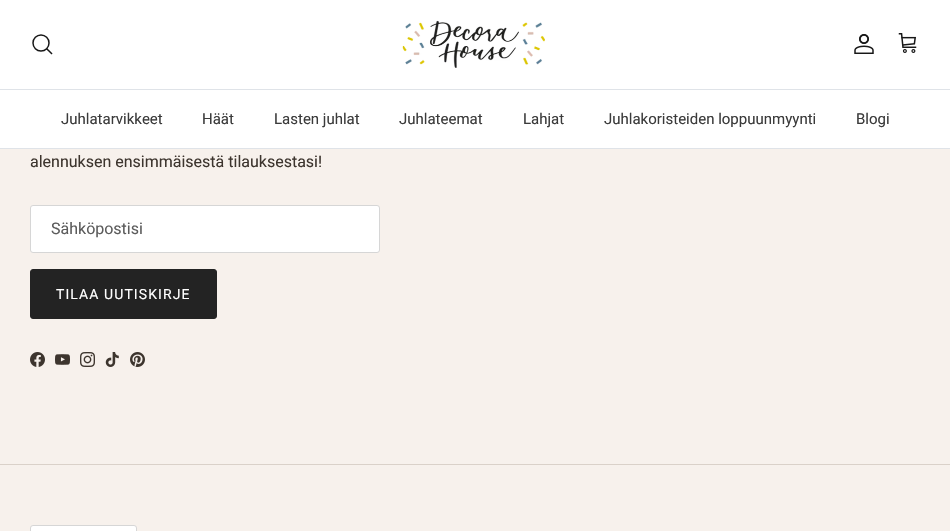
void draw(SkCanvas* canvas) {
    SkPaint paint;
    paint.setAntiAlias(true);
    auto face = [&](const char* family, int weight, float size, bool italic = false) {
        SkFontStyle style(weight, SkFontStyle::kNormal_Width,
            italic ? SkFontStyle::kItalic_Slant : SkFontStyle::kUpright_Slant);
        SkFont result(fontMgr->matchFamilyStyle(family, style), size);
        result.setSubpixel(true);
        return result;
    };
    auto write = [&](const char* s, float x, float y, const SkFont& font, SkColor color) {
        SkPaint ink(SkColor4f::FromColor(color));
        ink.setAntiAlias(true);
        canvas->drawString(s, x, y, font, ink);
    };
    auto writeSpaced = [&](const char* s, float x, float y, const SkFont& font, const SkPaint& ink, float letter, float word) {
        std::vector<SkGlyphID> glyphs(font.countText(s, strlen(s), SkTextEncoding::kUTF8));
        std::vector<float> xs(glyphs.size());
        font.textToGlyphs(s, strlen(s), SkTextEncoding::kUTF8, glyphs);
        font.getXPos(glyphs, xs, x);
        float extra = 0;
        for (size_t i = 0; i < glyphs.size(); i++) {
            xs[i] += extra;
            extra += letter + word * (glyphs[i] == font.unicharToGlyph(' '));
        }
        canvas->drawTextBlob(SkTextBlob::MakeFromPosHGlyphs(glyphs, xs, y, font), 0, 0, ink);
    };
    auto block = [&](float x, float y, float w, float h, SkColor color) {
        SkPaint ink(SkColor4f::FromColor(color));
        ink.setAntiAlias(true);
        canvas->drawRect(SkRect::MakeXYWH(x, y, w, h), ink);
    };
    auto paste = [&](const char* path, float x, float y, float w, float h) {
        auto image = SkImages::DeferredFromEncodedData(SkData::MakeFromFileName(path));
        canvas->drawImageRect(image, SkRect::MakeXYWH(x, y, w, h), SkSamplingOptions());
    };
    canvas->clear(SkColorSetRGB(247, 241, 236));
    block(0, 0, 950, 89, SK_ColorWHITE);
    block(0, 89, 950, 1, SkColorSetRGB(223, 227, 232));
    paint.setStyle(SkPaint::kStroke_Style);
    paint.setStrokeWidth(1.5f);
    paint.setColor(SkColorSetRGB(23, 23, 23));
    canvas->drawCircle(41, 43, 8, paint);
    paint.setStrokeCap(SkPaint::kSquare_Cap);
    canvas->drawPath(SkPathBuilder().moveTo(47, 49).lineTo(51.5f, 53.5f).detach(), paint);
    paste("pic1.png", 402, 20, 143, 48);
    paste("pic2.png", 854, 34, 20, 20);
    paste("pic3.png", 898, 33, 19, 20);
    block(0, 148, 950, 1, SkColorSetRGB(223, 227, 232));
    block(0, 90, 950, 58, SK_ColorWHITE);
    auto kFont1 = face("Roboto", 400, 15);
    write("Juhlatarvikkeet", 61, 124, kFont1, SkColorSetRGB(59, 59, 59));
    write("Häät", 202, 124, kFont1, SkColorSetRGB(59, 59, 59));
    write("Lasten juhlat", 274, 124, kFont1, SkColorSetRGB(59, 59, 59));
    write("Juhlateemat", 399, 124, kFont1, SkColorSetRGB(59, 59, 59));
    write("Lahjat", 523, 124, kFont1, SkColorSetRGB(59, 59, 59));
    write("Juhlakoristeiden loppuunmyynti", 604, 124, kFont1, SkColorSetRGB(59, 59, 59));
    write("Blogi", 856, 124, kFont1, SkColorSetRGB(59, 59, 59));
    auto kFont2 = face("Roboto", 400, 16);
    write("alennuksen ensimmäisestä tilauksestasi!", 30, 167, kFont2, SkColorSetRGB(61, 53, 46));
    paint.setStyle(SkPaint::kFill_Style);
    paint.setColor(SK_ColorWHITE);
    canvas->drawRoundRect(SkRect::MakeXYWH(30.5f, 205.5f, 349, 47), 2.5f, 2.5f, paint);
    paint.setStyle(SkPaint::kStroke_Style);
    paint.setStrokeWidth(1);
    paint.setStrokeCap(SkPaint::kButt_Cap);
    paint.setColor(SkColorSetRGB(214, 214, 214));
    canvas->drawRoundRect(SkRect::MakeXYWH(30.5f, 205.5f, 349, 47), 2.5f, 2.5f, paint);
    write("Sähköpostisi", 51, 234, kFont2, SkColorSetRGB(92, 92, 92));
    paint.setStyle(SkPaint::kFill_Style);
    paint.setColor(SkColorSetRGB(35, 35, 35));
    canvas->drawRoundRect(SkRect::MakeXYWH(30.5f, 269.5f, 186, 49), 2.5f, 2.5f, paint);
    paint.setStyle(SkPaint::kStroke_Style);
    canvas->drawRoundRect(SkRect::MakeXYWH(30.5f, 269.5f, 186, 49), 2.5f, 2.5f, paint);
    auto kFont3 = face("Roboto", 400, 14);
    paint.setStyle(SkPaint::kFill_Style);
    paint.setColor(SK_ColorWHITE);
    writeSpaced("TILAA UUTISKIRJE", 56, 299, kFont3, paint, 1.1f, 0);
    paste("pic4.png", 30, 352, 15, 15);
    paste("pic5.png", 55, 354, 15, 11);
    paste("pic6.png", 80, 352, 15, 15);
    paste("pic7.png", 105, 352, 14, 15);
    paste("pic8.png", 130, 352, 15, 15);
    block(0, 464, 950, 1, SkColorSetRGB(218, 209, 201));
    canvas->drawRoundRect(SkRect::MakeXYWH(30.5f, 525.5f, 106, 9), 2.5f, 2.5f, paint);
    paint.setStyle(SkPaint::kStroke_Style);
    paint.setColor(SkColorSetRGB(214, 214, 214));
    canvas->drawRoundRect(SkRect::MakeXYWH(30.5f, 525.5f, 106, 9), 2.5f, 2.5f, paint);
}
